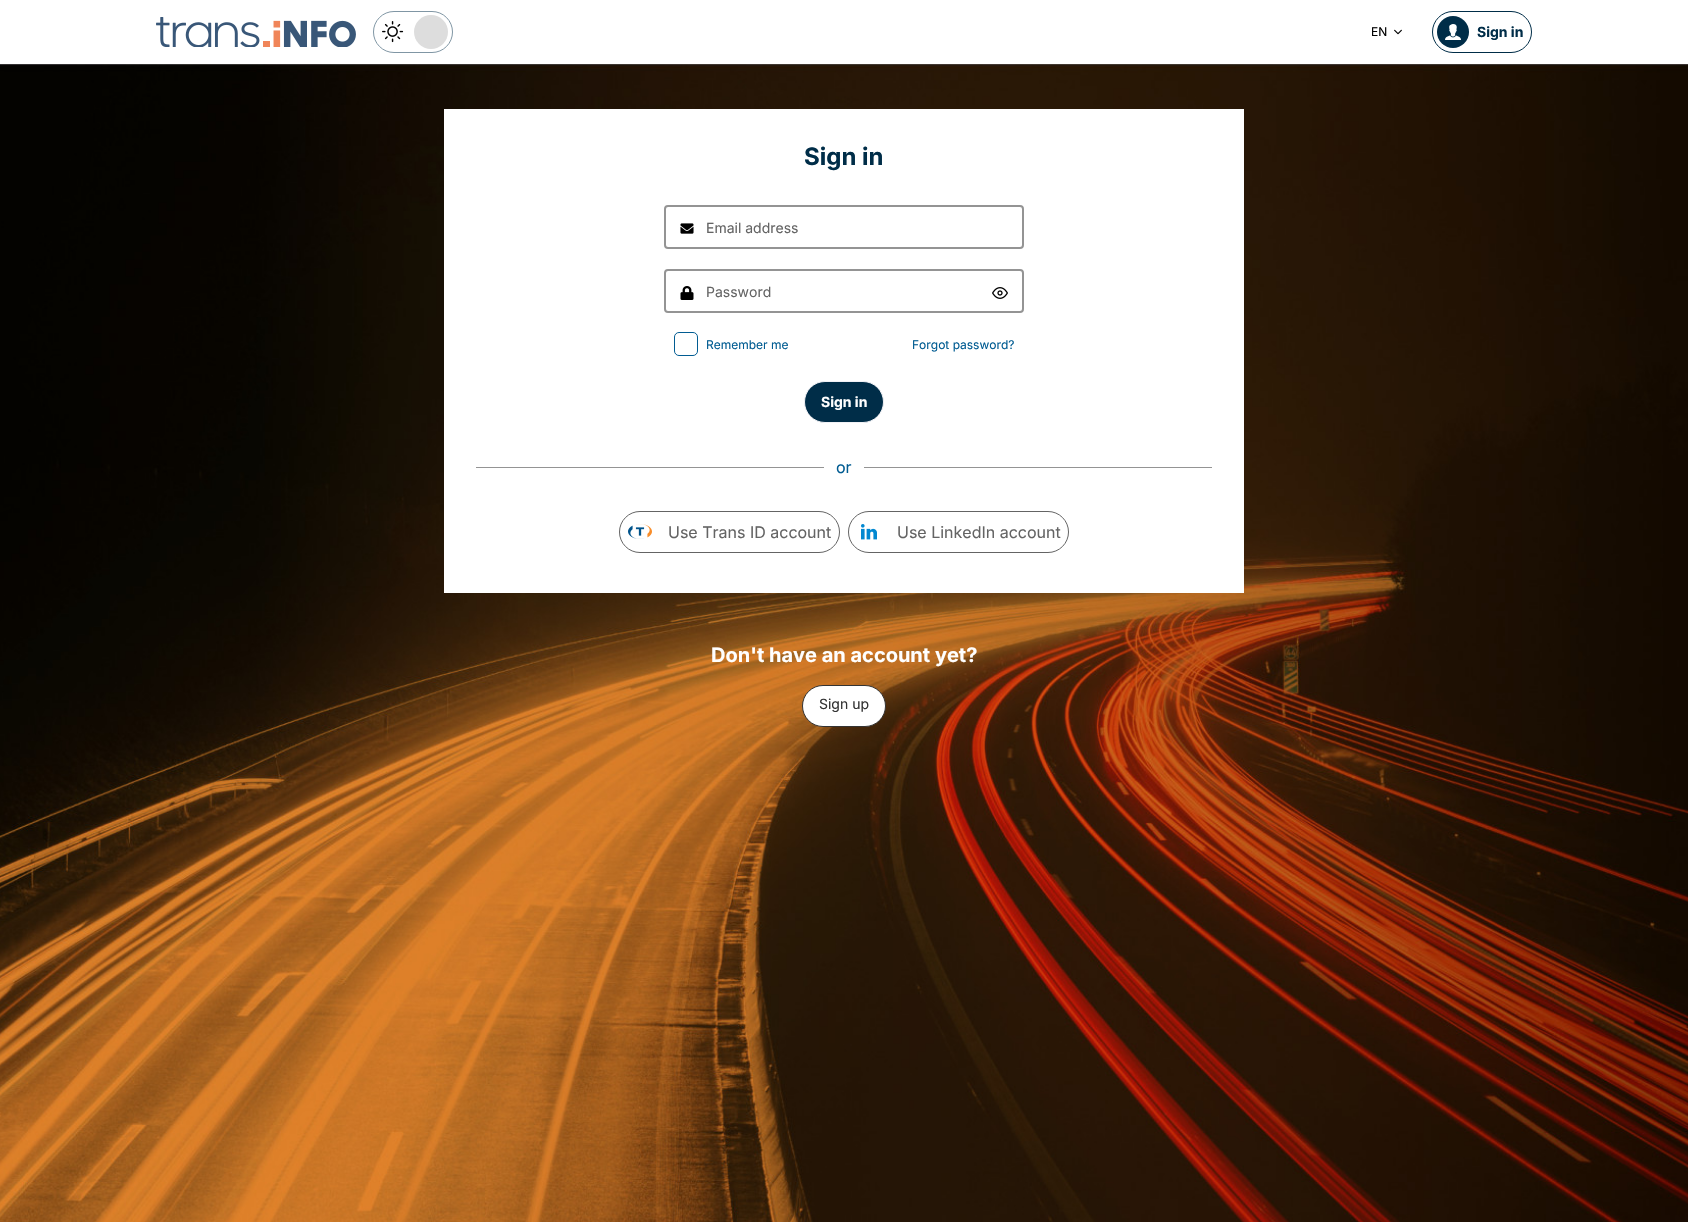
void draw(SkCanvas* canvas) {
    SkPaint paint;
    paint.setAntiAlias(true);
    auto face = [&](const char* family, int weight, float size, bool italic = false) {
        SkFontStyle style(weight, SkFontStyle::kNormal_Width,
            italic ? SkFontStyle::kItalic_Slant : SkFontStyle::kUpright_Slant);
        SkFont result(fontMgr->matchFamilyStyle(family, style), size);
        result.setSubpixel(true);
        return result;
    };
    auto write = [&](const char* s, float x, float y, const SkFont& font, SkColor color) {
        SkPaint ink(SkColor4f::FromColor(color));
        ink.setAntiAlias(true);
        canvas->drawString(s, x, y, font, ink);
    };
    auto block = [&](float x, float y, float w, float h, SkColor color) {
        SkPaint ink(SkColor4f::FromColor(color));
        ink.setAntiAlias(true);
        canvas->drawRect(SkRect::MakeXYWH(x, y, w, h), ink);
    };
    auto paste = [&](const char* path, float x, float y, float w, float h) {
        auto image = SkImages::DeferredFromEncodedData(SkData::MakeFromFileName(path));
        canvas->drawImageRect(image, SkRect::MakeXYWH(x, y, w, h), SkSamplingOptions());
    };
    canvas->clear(SK_ColorWHITE);
    paste("pic1.png", 156, 17, 200, 30);
    paint.setStyle(SkPaint::kStroke_Style);
    paint.setStrokeWidth(1);
    paint.setColor(SkColorSetRGB(128, 150, 164));
    canvas->drawRoundRect(SkRect::MakeXYWH(373.5f, 11.5f, 79, 41), 20.5f, 20.5f, paint);
    paste("pic2.png", 382, 21, 22, 22);
    paint.setStyle(SkPaint::kFill_Style);
    paint.setColor(SkColorSetRGB(221, 221, 221));
    canvas->drawCircle(431, 32, 17, paint);
    auto kFont1 = face("Inter", 400, 12);
    write("EN", 1371, 36, kFont1, SK_ColorBLACK);
    paste("pic3.png", 1394, 29, 8, 6);
    paint.setStyle(SkPaint::kStroke_Style);
    paint.setColor(SkColorSetRGB(0, 45, 72));
    canvas->drawRoundRect(SkRect::MakeXYWH(1432.5f, 11.5f, 99, 41), 20.5f, 20.5f, paint);
    paint.setStyle(SkPaint::kFill_Style);
    canvas->drawCircle(1453, 32, 16, paint);
    paste("pic4.png", 1445, 24, 16, 16);
    auto kFont2 = face("Inter", 700, 14);
    write("Sign in", 1477, 37, kFont2, SkColorSetRGB(0, 45, 72));
    paste("pic5.png", 0, 64, 1688, 1158);
    block(444, 109, 800, 484, SK_ColorWHITE);
    auto kFont3 = face("Inter", 700, 24);
    write("Sign in", 804, 165, kFont3, SkColorSetRGB(0, 45, 72));
    paint.setStyle(SkPaint::kStroke_Style);
    paint.setStrokeWidth(2);
    paint.setColor(SkColorSetRGB(148, 148, 148));
    canvas->drawRoundRect(SkRect::MakeXYWH(665, 206, 358, 42), 3, 3, paint);
    paste("pic6.png", 680, 223, 14, 11);
    auto kFont4 = face("Inter", 400, 14);
    write("Email address", 706, 233, kFont4, SkColorSetRGB(100, 100, 100));
    canvas->drawRoundRect(SkRect::MakeXYWH(665, 270, 358, 42), 3, 3, paint);
    paste("pic7.png", 680, 286, 14, 14);
    write("Password", 706, 297, kFont4, SkColorSetRGB(100, 100, 100));
    paste("pic8.png", 992, 287, 16, 12);
    paint.setStrokeWidth(1);
    paint.setColor(SkColorSetRGB(1, 92, 146));
    canvas->drawRoundRect(SkRect::MakeXYWH(674.5f, 332.5f, 23, 23), 4.5f, 4.5f, paint);
    write("Remember me", 706, 349, kFont1, SkColorSetRGB(1, 92, 146));
    write("Forgot password?", 912, 349, kFont1, SkColorSetRGB(1, 92, 146));
    paint.setStyle(SkPaint::kFill_Style);
    paint.setColor(SkColorSetRGB(0, 45, 72));
    canvas->drawRoundRect(SkRect::MakeXYWH(804.5f, 381.5f, 79, 41), 20.5f, 20.5f, paint);
    paint.setStyle(SkPaint::kStroke_Style);
    paint.setColor(SkColorSetRGB(241, 241, 245));
    canvas->drawRoundRect(SkRect::MakeXYWH(804.5f, 381.5f, 79, 41), 20.5f, 20.5f, paint);
    write("Sign in", 821, 407, kFont2, SK_ColorWHITE);
    block(476, 467, 348, 1, SkColorSetRGB(148, 148, 148));
    auto kFont5 = face("Inter", 400, 16);
    write("or", 836, 473, kFont5, SkColorSetRGB(1, 92, 146));
    block(864, 467, 348, 1, SkColorSetRGB(148, 148, 148));
    paint.setColor(SkColorSetRGB(100, 100, 100));
    canvas->drawRoundRect(SkRect::MakeXYWH(619.5f, 511.5f, 220, 41), 20.5f, 20.5f, paint);
    paste("pic9.png", 628, 524, 24, 15);
    write("Use Trans ID account", 668, 538, kFont5, SkColorSetRGB(100, 100, 100));
    canvas->drawRoundRect(SkRect::MakeXYWH(848.5f, 511.5f, 220, 41), 20.5f, 20.5f, paint);
    paste("pic10.png", 861, 524, 16, 16);
    write("Use LinkedIn account", 897, 538, kFont5, SkColorSetRGB(100, 100, 100));
    auto kFont6 = face("Inter", 700, 20);
    write("Don't have an account yet?", 711, 662, kFont6, SK_ColorWHITE);
    paint.setStyle(SkPaint::kFill_Style);
    paint.setColor(SK_ColorWHITE);
    canvas->drawRoundRect(SkRect::MakeXYWH(802.5f, 685.5f, 83, 41), 20.5f, 20.5f, paint);
    paint.setStyle(SkPaint::kStroke_Style);
    paint.setColor(SkColorSetRGB(51, 51, 51));
    canvas->drawRoundRect(SkRect::MakeXYWH(802.5f, 685.5f, 83, 41), 20.5f, 20.5f, paint);
    write("Sign up", 819, 709, kFont4, SkColorSetRGB(51, 51, 51));
}
